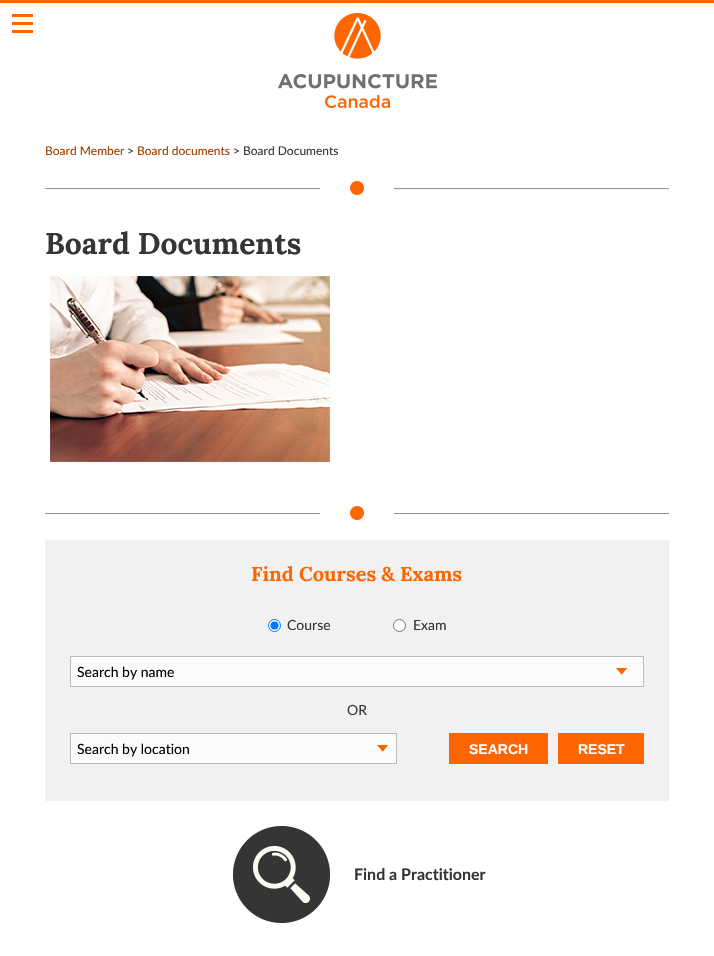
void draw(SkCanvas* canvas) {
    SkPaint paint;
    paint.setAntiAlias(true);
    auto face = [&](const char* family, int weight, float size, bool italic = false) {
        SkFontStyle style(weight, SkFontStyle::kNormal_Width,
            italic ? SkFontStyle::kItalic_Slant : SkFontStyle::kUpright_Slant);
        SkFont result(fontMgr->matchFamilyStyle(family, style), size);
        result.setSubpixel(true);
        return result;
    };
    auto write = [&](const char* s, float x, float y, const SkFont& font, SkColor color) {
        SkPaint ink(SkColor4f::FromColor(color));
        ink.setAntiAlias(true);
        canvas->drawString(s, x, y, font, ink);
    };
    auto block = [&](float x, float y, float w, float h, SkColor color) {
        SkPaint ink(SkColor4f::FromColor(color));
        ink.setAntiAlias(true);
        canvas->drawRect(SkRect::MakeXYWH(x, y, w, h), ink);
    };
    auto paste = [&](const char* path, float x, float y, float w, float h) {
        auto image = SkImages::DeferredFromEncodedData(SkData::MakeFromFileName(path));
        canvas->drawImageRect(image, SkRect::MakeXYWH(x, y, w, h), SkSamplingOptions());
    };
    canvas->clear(SK_ColorWHITE);
    block(0, 0, 714, 3, SkColorSetRGB(255, 102, 0));
    paste("pic1.png", 12, 14, 21, 19);
    paste("pic2.png", 278, 13, 159, 95);
    paste("pic3.png", 45, 181, 624, 14);
    auto kFont1 = face("Lato", 400, 12);
    write("Board Member", 45, 155, kFont1, SkColorSetRGB(161, 61, 0));
    write(">", 127, 155, kFont1, SkColorSetRGB(53, 53, 53));
    write("Board documents", 137, 155, kFont1, SkColorSetRGB(161, 61, 0));
    write("> Board Documents", 233, 155, kFont1, SkColorSetRGB(53, 53, 53));
    paste("pic3.png", 45, 506, 624, 14);
    auto kFont2 = face("Lora", 700, 30);
    write("Board Documents", 45, 254, kFont2, SkColorSetRGB(53, 53, 53));
    paste("pic4.png", 50, 276, 280, 186);
    block(45, 540, 624, 261, SkColorSetRGB(241, 241, 241));
    auto kFont3 = face("Lora", 700, 20);
    write("Find Courses & Exams", 251, 581, kFont3, SkColorSetRGB(255, 101, 0));
    paint.setColor(SK_ColorWHITE);
    canvas->drawCircle(274.5f, 625.5f, 6, paint);
    paint.setStyle(SkPaint::kStroke_Style);
    paint.setStrokeWidth(1);
    paint.setColor(SkColorSetRGB(0, 117, 255));
    canvas->drawCircle(274.5f, 625.5f, 6, paint);
    paint.setStyle(SkPaint::kFill_Style);
    canvas->drawCircle(274.5f, 625.5f, 4, paint);
    auto kFont4 = face("Lato", 400, 14);
    write("Course", 287, 630, kFont4, SkColorSetRGB(53, 53, 53));
    paint.setColor(SK_ColorWHITE);
    canvas->drawCircle(399.5f, 625.5f, 6, paint);
    paint.setStyle(SkPaint::kStroke_Style);
    paint.setColor(SkColorSetRGB(118, 118, 118));
    canvas->drawCircle(399.5f, 625.5f, 6, paint);
    write("Exam", 413, 630, kFont4, SkColorSetRGB(53, 53, 53));
    block(71, 657, 572, 29, SkColorSetRGB(251, 251, 251));
    paste("pic5.png", 616, 668, 11, 7);
    paint.setColor(SkColorSetRGB(187, 187, 187));
    canvas->drawRect(SkRect::MakeXYWH(70.5f, 656.5f, 573, 30), paint);
    write("Search by name", 77, 677, kFont4, SK_ColorBLACK);
    write("OR", 347, 715, kFont4, SkColorSetRGB(53, 53, 53));
    block(71, 734, 325, 29, SkColorSetRGB(251, 251, 251));
    paste("pic5.png", 377, 745, 11, 7);
    canvas->drawRect(SkRect::MakeXYWH(70.5f, 733.5f, 326, 30), paint);
    write("Search by location", 77, 754, kFont4, SK_ColorBLACK);
    block(449, 733, 99, 31, SkColorSetRGB(252, 101, 0));
    auto kFont5 = face("Liberation Sans", 700, 14);
    write("SEARCH", 469, 754, kFont5, SK_ColorWHITE);
    block(558, 733, 86, 31, SkColorSetRGB(252, 101, 0));
    write("RESET", 578, 754, kFont5, SK_ColorWHITE);
    paste("pic6.png", 233, 826, 97, 97);
    auto kFont6 = face("Lato", 700, 16);
    write("Find a Practitioner", 354, 880, kFont6, SkColorSetRGB(53, 53, 53));
}
